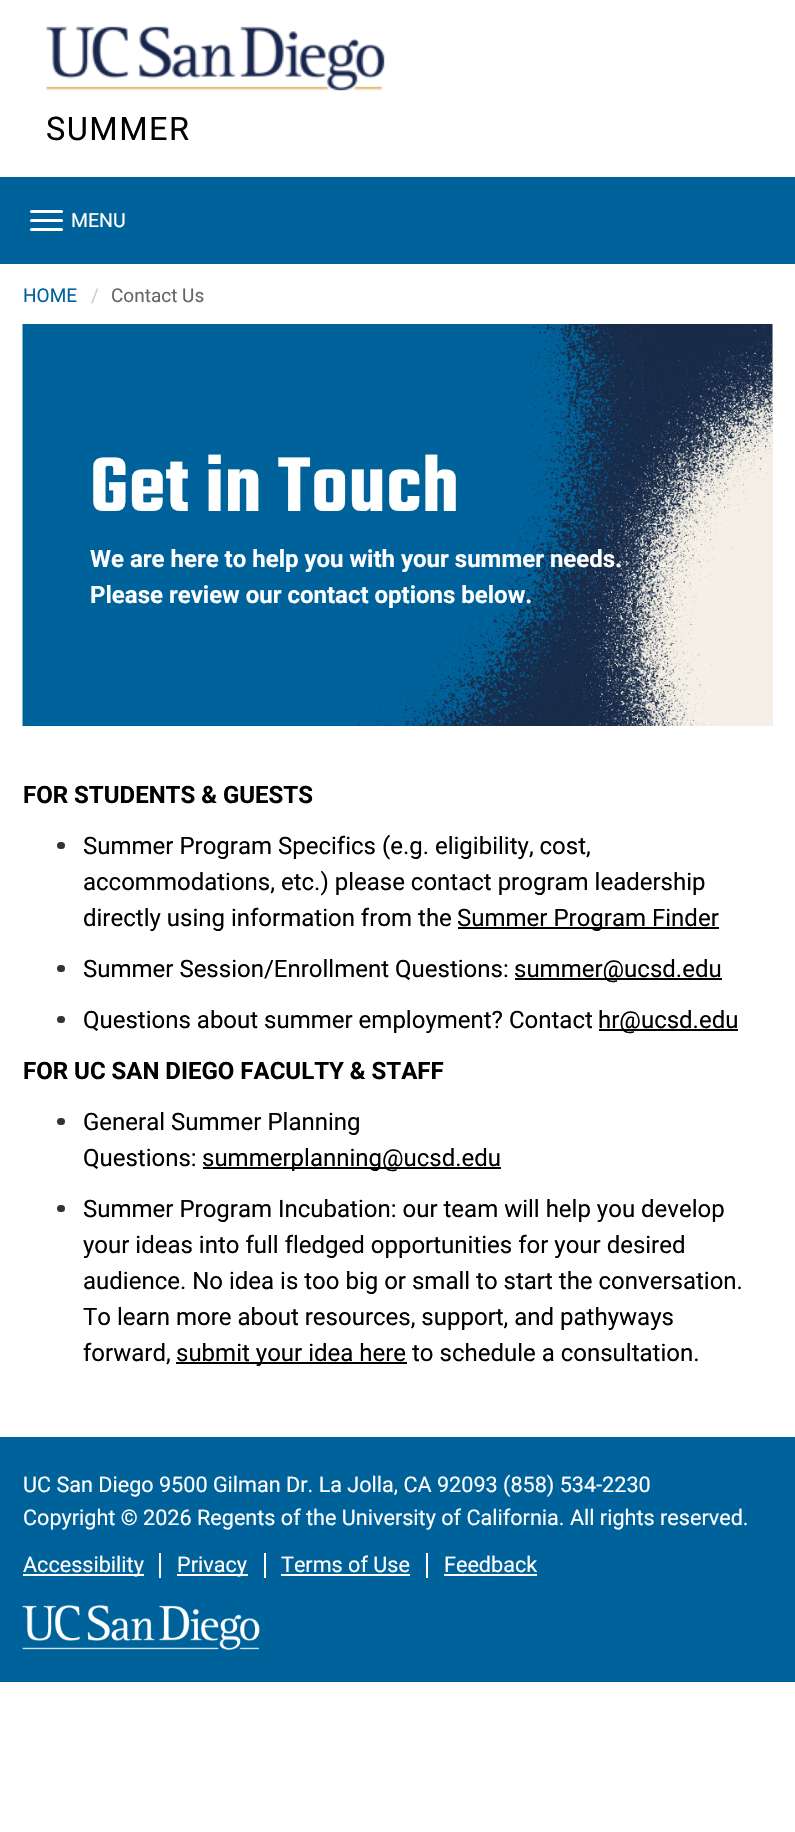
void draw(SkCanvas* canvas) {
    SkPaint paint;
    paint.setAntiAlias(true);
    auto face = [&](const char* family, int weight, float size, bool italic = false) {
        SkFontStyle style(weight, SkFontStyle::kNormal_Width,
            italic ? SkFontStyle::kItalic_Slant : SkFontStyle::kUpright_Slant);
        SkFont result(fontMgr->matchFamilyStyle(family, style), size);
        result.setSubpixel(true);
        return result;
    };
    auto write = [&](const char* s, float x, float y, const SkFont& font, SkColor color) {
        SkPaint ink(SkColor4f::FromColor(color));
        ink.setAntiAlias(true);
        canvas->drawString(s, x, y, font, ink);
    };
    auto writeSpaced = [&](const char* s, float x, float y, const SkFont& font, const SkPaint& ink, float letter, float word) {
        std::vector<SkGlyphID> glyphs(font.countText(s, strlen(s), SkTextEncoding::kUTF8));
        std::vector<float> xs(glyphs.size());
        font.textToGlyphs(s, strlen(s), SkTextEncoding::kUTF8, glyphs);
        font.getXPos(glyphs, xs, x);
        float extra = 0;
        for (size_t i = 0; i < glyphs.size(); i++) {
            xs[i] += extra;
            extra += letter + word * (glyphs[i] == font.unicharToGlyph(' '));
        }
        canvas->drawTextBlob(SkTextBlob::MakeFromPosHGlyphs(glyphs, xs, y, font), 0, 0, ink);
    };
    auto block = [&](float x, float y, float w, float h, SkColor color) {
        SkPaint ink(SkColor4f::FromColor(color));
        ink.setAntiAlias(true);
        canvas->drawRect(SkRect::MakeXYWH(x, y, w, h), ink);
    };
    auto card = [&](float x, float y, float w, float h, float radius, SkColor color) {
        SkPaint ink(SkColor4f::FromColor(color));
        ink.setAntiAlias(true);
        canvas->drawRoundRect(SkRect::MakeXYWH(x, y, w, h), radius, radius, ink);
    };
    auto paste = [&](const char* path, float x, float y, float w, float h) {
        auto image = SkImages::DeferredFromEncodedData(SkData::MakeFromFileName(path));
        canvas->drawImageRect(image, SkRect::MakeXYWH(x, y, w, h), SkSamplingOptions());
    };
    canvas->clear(SK_ColorWHITE);
    paste("pic1.png", 46, 26, 339, 65);
    auto kFont1 = face("Roboto", 400, 32.5f);
    paint.setColor(SK_ColorBLACK);
    writeSpaced("SUMMER", 46, 140, kFont1, paint, 1.5f, 0);
    block(0, 177, 795, 87, SkColorSetRGB(0, 98, 155));
    card(30, 210, 33, 3, 1.5f, SK_ColorWHITE);
    card(30, 219, 33, 3, 1.5f, SK_ColorWHITE);
    card(30, 228, 33, 3, 1.5f, SK_ColorWHITE);
    auto kFont2 = face("Roboto", 400, 19.5f);
    write("MENU", 71, 227, kFont2, SK_ColorWHITE);
    auto kFont3 = face("Roboto", 400, 19);
    write("HOME", 23, 302, kFont3, SkColorSetRGB(0, 98, 155));
    write("/", 91, 302, kFont3, SkColorSetRGB(204, 204, 204));
    write("Contact Us", 111, 302, kFont3, SkColorSetRGB(102, 102, 102));
    block(772, 324, 1, 402, SkColorSetRGB(245, 240, 230));
    paste("pic2.png", 22, 324, 751, 402);
    auto kFont4 = face("Teko", 600, 84);
    paint.setColor(SK_ColorWHITE);
    writeSpaced("Get in Touch", 90, 511, kFont4, paint, 0.75f, 0);
    auto kFont5 = face("Roboto", 700, 24);
    write("We are here to help you with your summer needs.", 90, 567, kFont5, SK_ColorWHITE);
    write("Please review our contact options below.", 90, 603, kFont5, SK_ColorWHITE);
    write("FOR STUDENTS & GUESTS", 23, 803, kFont5, SK_ColorBLACK);
    card(57, 842, 8, 7, 3.5f, SkColorSetRGB(51, 51, 51));
    auto kFont6 = face("Roboto", 400, 24);
    write("Summer Program Specifics (e.g. eligibility, cost,", 83, 854, kFont6, SK_ColorBLACK);
    write("accommodations, etc.) please contact program leadership", 83, 890, kFont6, SK_ColorBLACK);
    write("directly using information from the", 83, 926, kFont6, SK_ColorBLACK);
    block(458, 927, 261, 2, SK_ColorBLACK);
    write("Summer Program Finder", 457, 926, kFont6, SK_ColorBLACK);
    card(57, 965, 8, 7, 3.5f, SkColorSetRGB(51, 51, 51));
    write("Summer Session/Enrollment Questions:", 83, 977, kFont6, SK_ColorBLACK);
    block(515, 978, 207, 2, SK_ColorBLACK);
    write("summer@ucsd.edu", 514, 977, kFont6, SK_ColorBLACK);
    card(57, 1016, 8, 7, 3.5f, SkColorSetRGB(51, 51, 51));
    write("Questions about summer employment? Contact", 83, 1028, kFont6, SK_ColorBLACK);
    block(599, 1029, 139, 2, SK_ColorBLACK);
    write("hr@ucsd.edu", 598, 1028, kFont6, SK_ColorBLACK);
    write("FOR UC SAN DIEGO FACULTY & STAFF", 23, 1079, kFont5, SK_ColorBLACK);
    card(57, 1118, 8, 7, 3.5f, SkColorSetRGB(51, 51, 51));
    write("General Summer Planning", 83, 1130, kFont6, SK_ColorBLACK);
    write("Questions:", 83, 1166, kFont6, SK_ColorBLACK);
    block(203, 1167, 298, 2, SK_ColorBLACK);
    write("summerplanning@ucsd.edu", 202, 1166, kFont6, SK_ColorBLACK);
    card(57, 1205, 8, 7, 3.5f, SkColorSetRGB(51, 51, 51));
    write("Summer Program Incubation: our team will help you develop", 83, 1217, kFont6, SK_ColorBLACK);
    write("your ideas into full fledged opportunities for your desired", 83, 1253, kFont6, SK_ColorBLACK);
    write("audience. No idea is too big or small to start the conversation.", 83, 1289, kFont6, SK_ColorBLACK);
    write("To learn more about resources, support, and pathyways", 83, 1325, kFont6, SK_ColorBLACK);
    write("forward,", 83, 1361, kFont6, SK_ColorBLACK);
    block(176, 1362, 231, 2, SK_ColorBLACK);
    write("submit your idea here to schedule a consultation.", 176, 1361, kFont6, SK_ColorBLACK);
    block(0, 1437, 795, 245, SkColorSetRGB(0, 98, 155));
    auto kFont7 = face("Roboto", 400, 21.6f);
    write("UC San Diego 9500 Gilman Dr. La Jolla, CA 92093 (858) 534-2230", 23, 1492, kFont7, SK_ColorWHITE);
    write("Copyright © 2026 Regents of the University of California. All rights reserved.", 23, 1525, kFont7, SK_ColorWHITE);
    block(23, 1574, 121, 2, SK_ColorWHITE);
    write("Accessibility", 23, 1572, kFont7, SK_ColorWHITE);
    block(159, 1553, 2, 25, SK_ColorWHITE);
    block(177, 1574, 71, 2, SK_ColorWHITE);
    write("Privacy", 177, 1572, kFont7, SK_ColorWHITE);
    block(264, 1553, 2, 25, SK_ColorWHITE);
    write("Terms of Use", 281, 1572, kFont7, SK_ColorWHITE);
    block(426, 1553, 2, 25, SK_ColorWHITE);
    block(281, 1574, 129, 2, SK_ColorWHITE);
    write("Feedback", 444, 1572, kFont7, SK_ColorWHITE);
    block(444, 1574, 93, 2, SK_ColorWHITE);
    paste("pic3.png", 22, 1605, 238, 45);
}
